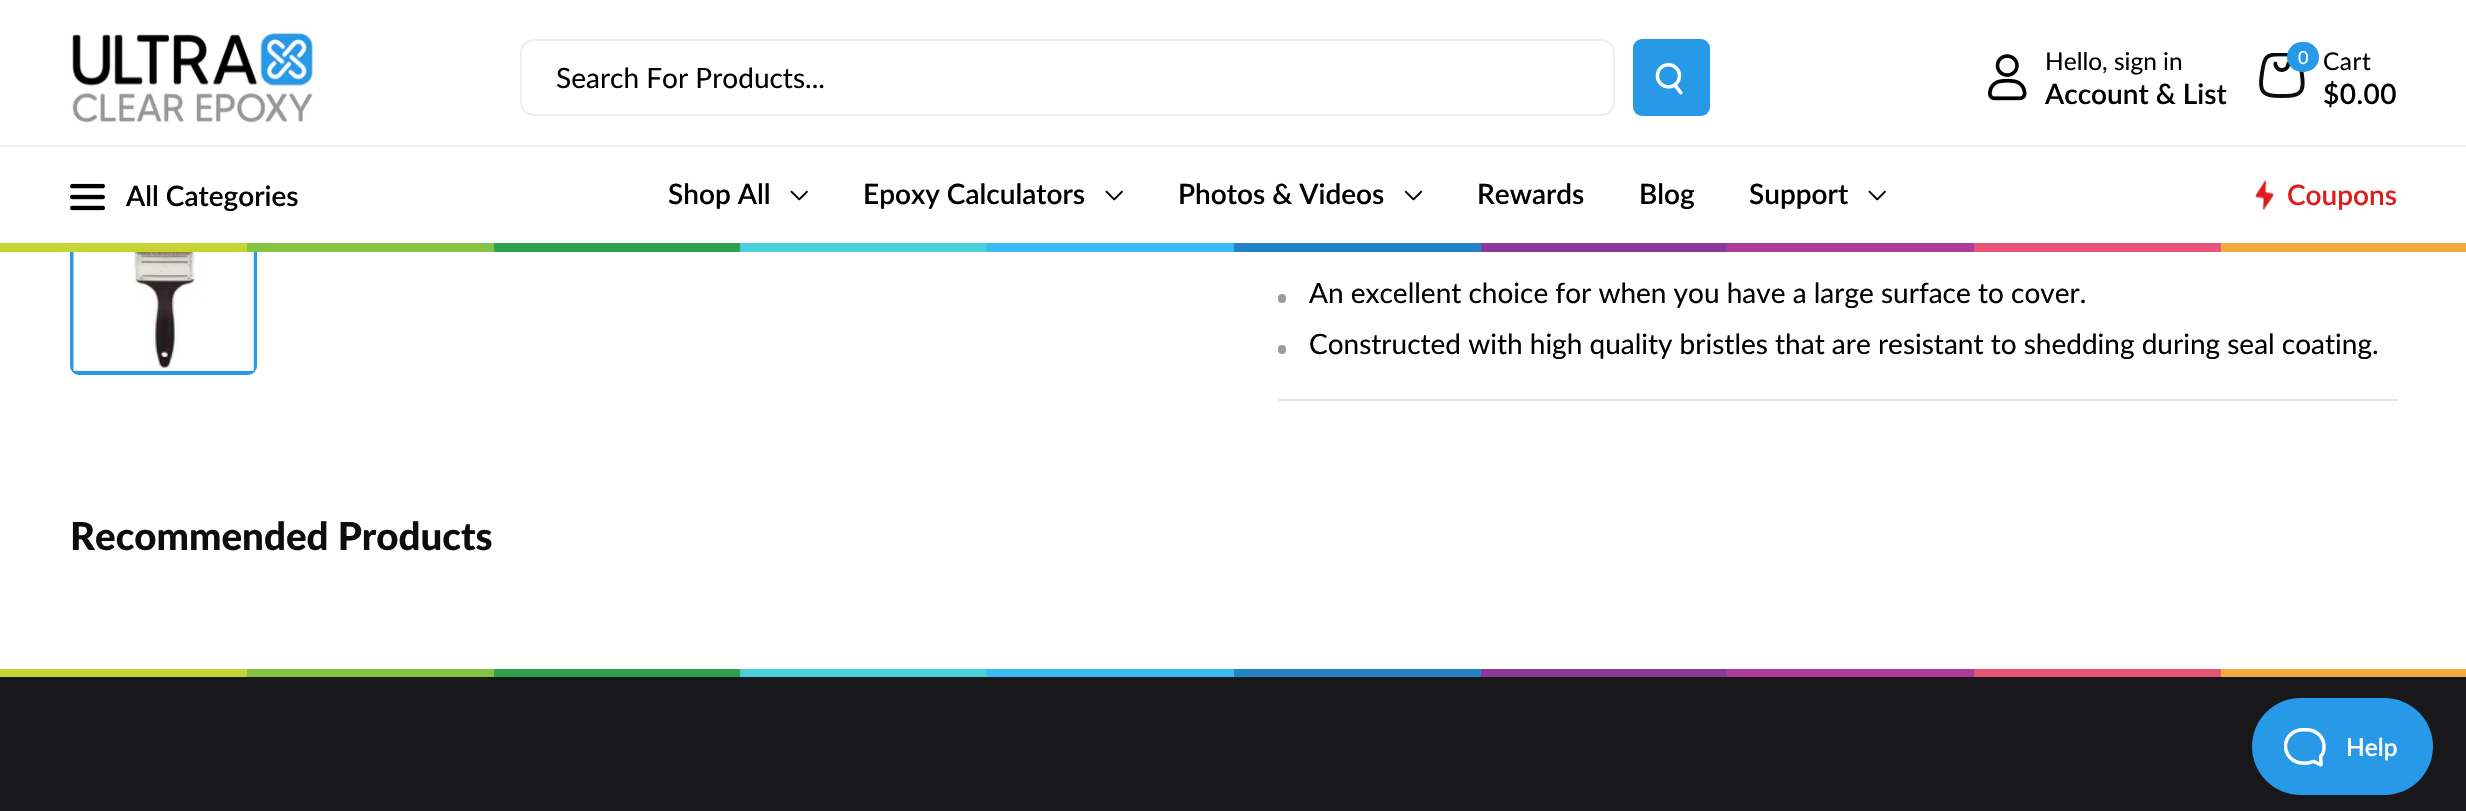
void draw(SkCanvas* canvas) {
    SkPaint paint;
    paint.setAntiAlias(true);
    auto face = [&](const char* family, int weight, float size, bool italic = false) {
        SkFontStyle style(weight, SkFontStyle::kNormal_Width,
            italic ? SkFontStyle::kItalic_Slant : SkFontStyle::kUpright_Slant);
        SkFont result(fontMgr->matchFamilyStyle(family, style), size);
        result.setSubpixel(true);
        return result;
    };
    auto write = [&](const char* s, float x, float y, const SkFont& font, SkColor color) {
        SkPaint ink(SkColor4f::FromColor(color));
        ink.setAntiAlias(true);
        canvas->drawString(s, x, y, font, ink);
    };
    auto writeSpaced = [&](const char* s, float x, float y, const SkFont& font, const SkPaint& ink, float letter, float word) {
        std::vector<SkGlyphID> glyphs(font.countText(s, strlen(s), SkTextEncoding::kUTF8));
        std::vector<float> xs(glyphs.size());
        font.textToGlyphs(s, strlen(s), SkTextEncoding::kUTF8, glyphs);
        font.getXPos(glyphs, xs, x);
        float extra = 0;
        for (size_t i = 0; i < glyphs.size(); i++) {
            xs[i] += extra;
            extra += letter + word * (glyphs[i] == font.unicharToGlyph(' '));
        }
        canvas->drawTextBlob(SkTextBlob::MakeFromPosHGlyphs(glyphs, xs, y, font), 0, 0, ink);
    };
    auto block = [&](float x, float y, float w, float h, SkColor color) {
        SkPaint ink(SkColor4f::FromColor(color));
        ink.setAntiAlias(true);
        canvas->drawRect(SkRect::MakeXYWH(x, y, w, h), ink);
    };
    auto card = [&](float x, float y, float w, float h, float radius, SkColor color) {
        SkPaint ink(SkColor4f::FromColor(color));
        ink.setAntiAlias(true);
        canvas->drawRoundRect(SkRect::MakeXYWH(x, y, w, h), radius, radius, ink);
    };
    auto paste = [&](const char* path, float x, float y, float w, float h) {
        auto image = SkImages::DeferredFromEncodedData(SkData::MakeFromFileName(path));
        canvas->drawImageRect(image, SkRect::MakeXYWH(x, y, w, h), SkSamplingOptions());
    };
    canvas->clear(SK_ColorWHITE);
    paste("pic1.png", 71, 31, 244, 92);
    paint.setStyle(SkPaint::kStroke_Style);
    paint.setStrokeWidth(2);
    paint.setColor(SkColorSetRGB(238, 238, 238));
    canvas->drawRoundRect(SkRect::MakeXYWH(521, 40, 1093, 75), 13, 13, paint);
    auto kFont1 = face("Lato", 400, 28);
    write("Search For Products...", 556, 88, kFont1, SK_ColorBLACK);
    card(1633, 39, 77, 77, 9, SkColorSetRGB(39, 153, 231));
    paste("pic2.png", 1655, 63, 28, 32);
    paste("pic3.png", 1988, 54, 39, 47);
    auto kFont2 = face("Lato", 400, 24.5f);
    write("Hello, sign in", 2045, 70, kFont2, SK_ColorBLACK);
    auto kFont3 = face("Lato", 600, 28);
    write("Account & List", 2045, 104, kFont3, SK_ColorBLACK);
    paste("pic4.png", 2259, 53, 46, 45);
    card(2287, 42, 32, 30, 15, SkColorSetRGB(39, 153, 231));
    auto kFont4 = face("Lato", 400, 18);
    write("0", 2298, 64, kFont4, SK_ColorWHITE);
    paint.setStyle(SkPaint::kFill_Style);
    paint.setColor(SK_ColorBLACK);
    writeSpaced("Cart", 2323, 70, kFont2, paint, 0.5f, 0);
    writeSpaced("$0.00", 2323, 104, kFont3, paint, 0.5f, 0);
    paint.setStyle(SkPaint::kStroke_Style);
    paint.setStrokeWidth(4);
    paint.setColor(SkColorSetRGB(39, 153, 231));
    canvas->drawRoundRect(SkRect::MakeXYWH(72, 189, 183, 184), 7, 7, paint);
    block(70, 187, 187, 56, SK_ColorWHITE);
    block(0, 145, 2466, 2, SkColorSetRGB(238, 238, 238));
    paste("pic5.png", 70, 183, 35, 28);
    write("All Categories", 126, 206, kFont3, SK_ColorBLACK);
    write("Shop All", 668, 204, kFont3, SK_ColorBLACK);
    paste("pic6.png", 790, 190, 18, 11);
    write("Epoxy Calculators", 863, 204, kFont3, SK_ColorBLACK);
    paste("pic6.png", 1105, 190, 18, 11);
    write("Photos & Videos", 1178, 204, kFont3, SK_ColorBLACK);
    paste("pic7.png", 1404, 190, 19, 11);
    write("Rewards", 1477, 204, kFont3, SK_ColorBLACK);
    write("Blog", 1639, 204, kFont3, SK_ColorBLACK);
    write("Support", 1749, 204, kFont3, SK_ColorBLACK);
    paste("pic6.png", 1868, 190, 18, 11);
    paste("pic8.png", 2255, 180, 19, 30);
    write("Coupons", 2287, 205, kFont3, SkColorSetRGB(221, 29, 29));
    block(0, 243, 247, 9, SkColorSetRGB(198, 213, 50));
    block(247, 243, 247, 9, SkColorSetRGB(132, 196, 66));
    block(494, 243, 246, 9, SkColorSetRGB(45, 161, 78));
    block(740, 243, 247, 9, SkColorSetRGB(72, 207, 219));
    block(987, 243, 247, 9, SkColorSetRGB(57, 186, 244));
    block(1234, 243, 247, 9, SkColorSetRGB(34, 131, 199));
    block(1481, 243, 246, 9, SkColorSetRGB(139, 55, 156));
    block(1727, 243, 247, 9, SkColorSetRGB(174, 59, 153));
    block(1974, 243, 247, 9, SkColorSetRGB(232, 83, 120));
    block(2221, 243, 245, 9, SkColorSetRGB(244, 169, 60));
    paste("pic9.png", 73, 252, 181, 119);
    block(1278, 399, 1120, 2, SkColorSetRGB(225, 227, 228));
    card(1278, 294, 8, 9, 4, SkColorSetRGB(153, 153, 153));
    write("An excellent choice for when you have a large surface to cover.", 1309, 303, kFont1, SK_ColorBLACK);
    card(1278, 345, 8, 9, 4, SkColorSetRGB(153, 153, 153));
    write("Constructed with high quality bristles that are resistant to shedding during seal coating.", 1309, 354, kFont1, SK_ColorBLACK);
    auto kFont5 = face("Lato", 900, 38.5f);
    write("Recommended Products", 70, 550, kFont5, SkColorSetRGB(13, 13, 13));
    block(0, 669, 247, 8, SkColorSetRGB(198, 213, 50));
    block(247, 669, 247, 8, SkColorSetRGB(132, 196, 66));
    block(494, 669, 246, 8, SkColorSetRGB(45, 161, 78));
    block(740, 669, 247, 8, SkColorSetRGB(72, 207, 219));
    block(987, 669, 247, 8, SkColorSetRGB(57, 186, 244));
    block(1234, 669, 247, 8, SkColorSetRGB(34, 131, 199));
    block(1481, 669, 246, 8, SkColorSetRGB(139, 55, 156));
    block(1727, 669, 247, 8, SkColorSetRGB(174, 59, 153));
    block(1974, 669, 247, 8, SkColorSetRGB(232, 83, 120));
    block(2221, 669, 245, 8, SkColorSetRGB(244, 169, 60));
    block(0, 677, 2466, 134, SkColorSetRGB(24, 24, 27));
    card(2252, 698, 181, 97, 48.5f, SkColorSetRGB(39, 153, 231));
    paste("pic10.png", 2284, 728, 42, 39);
    auto kFont6 = face("Lato", 600, 24.5f);
    write("Help", 2346, 756, kFont6, SK_ColorWHITE);
}
